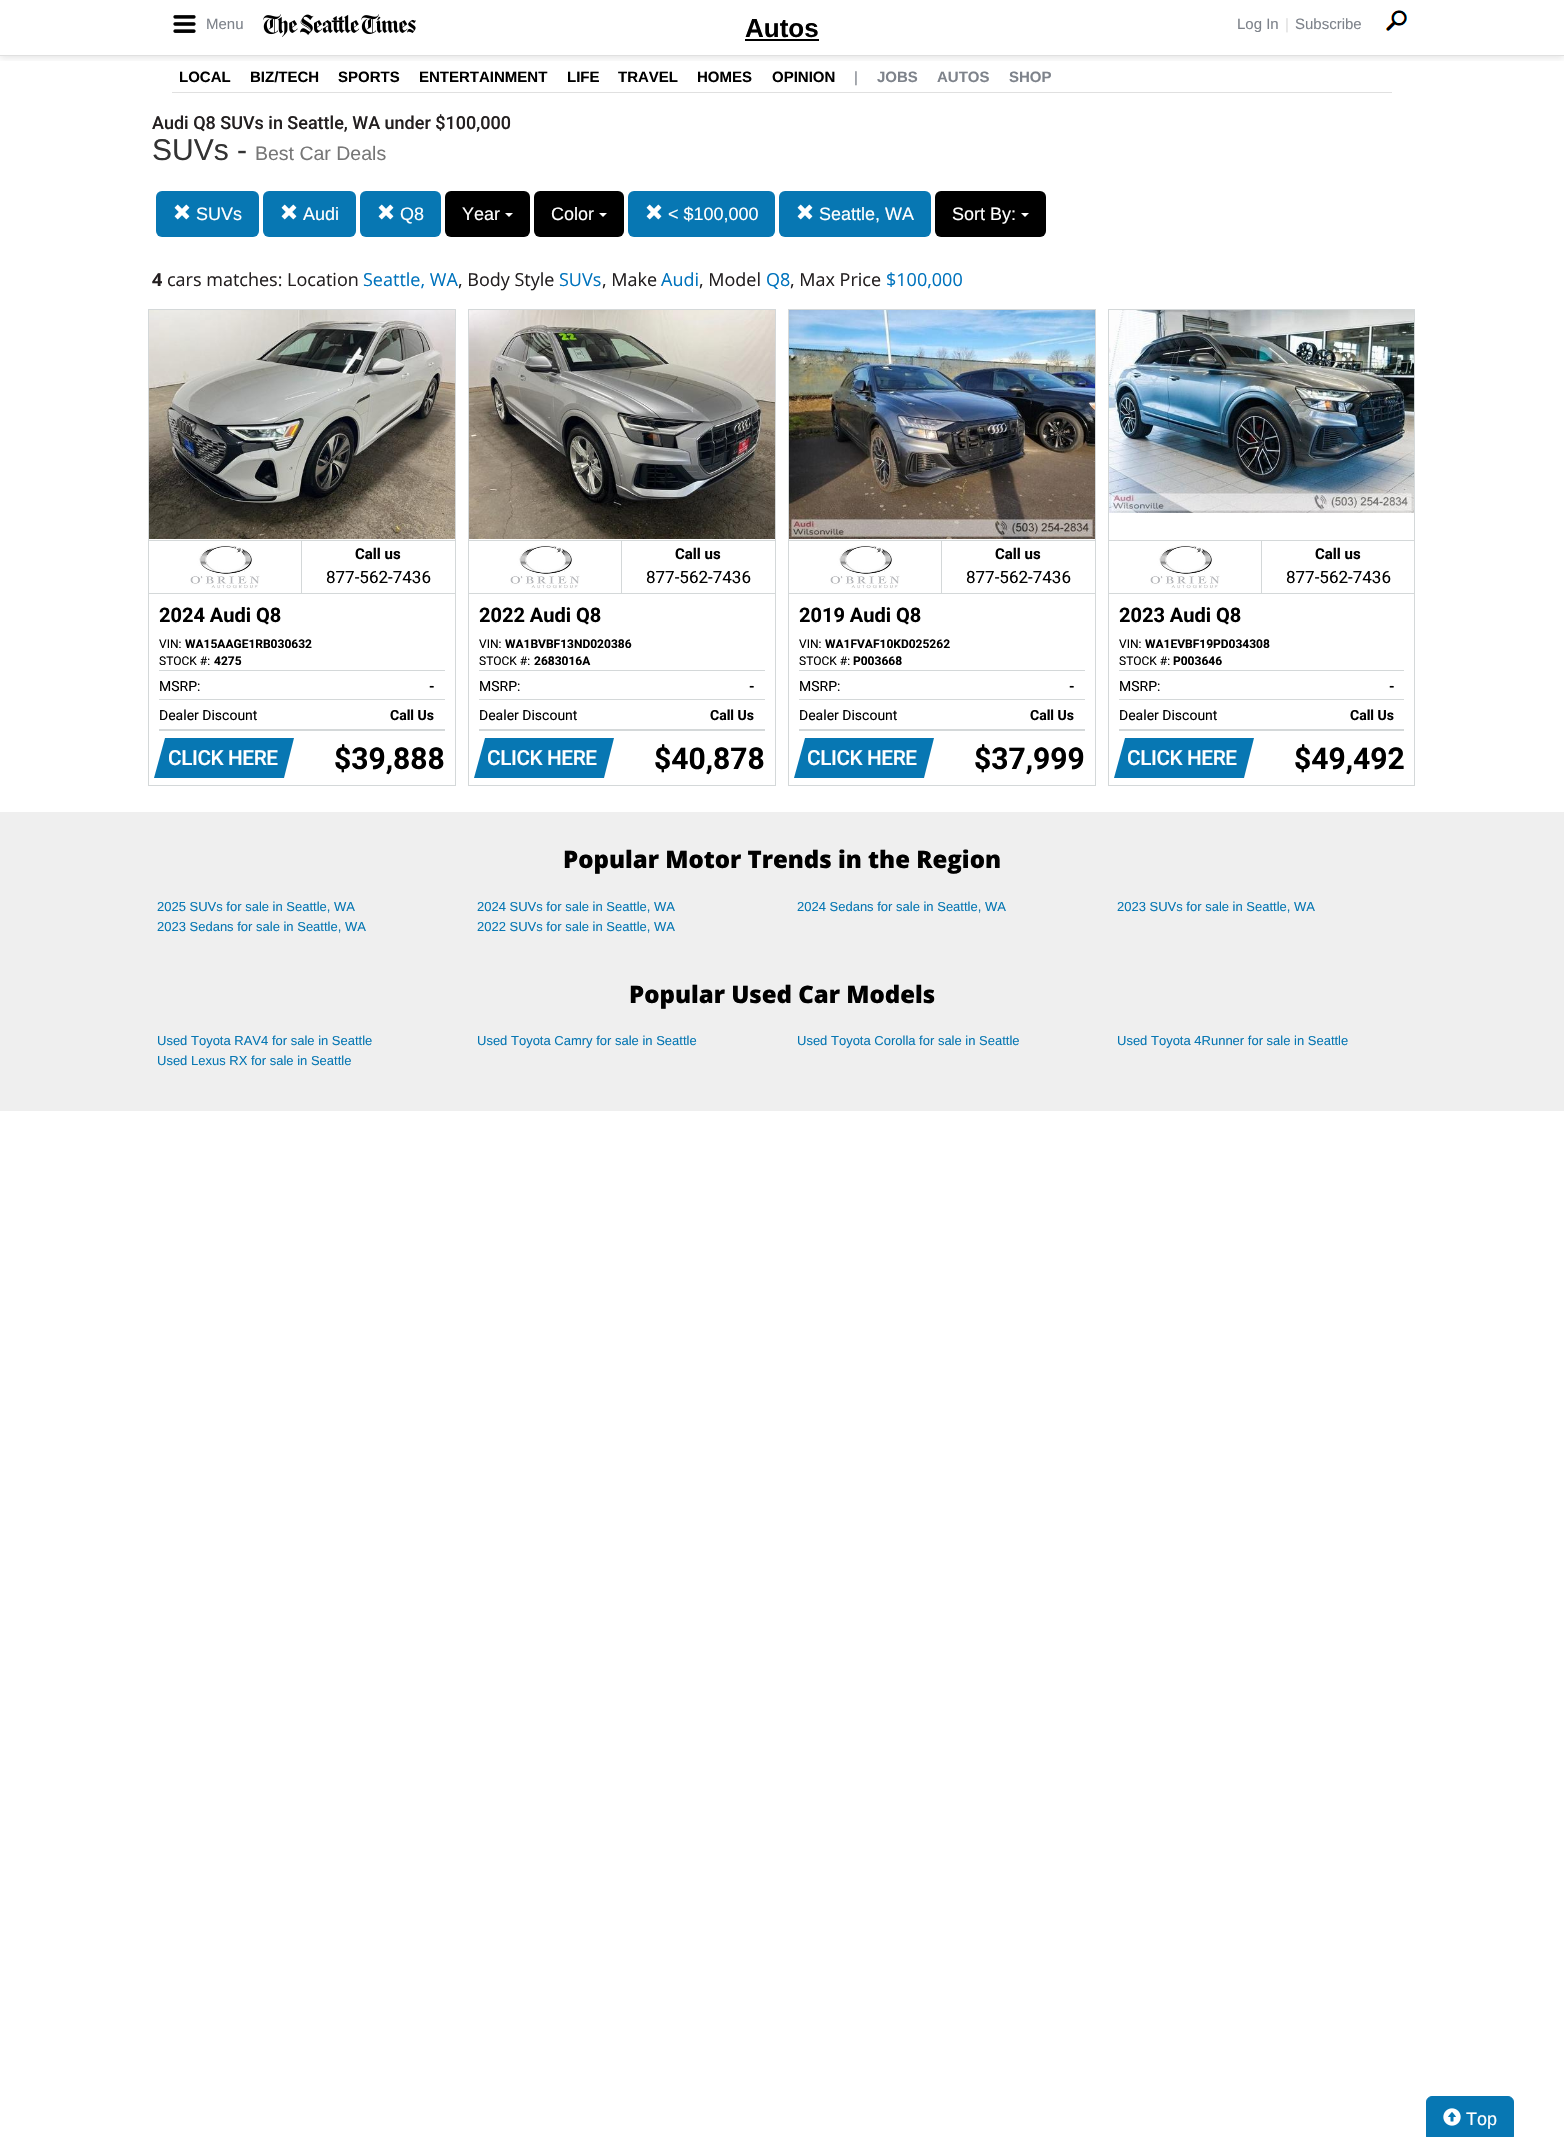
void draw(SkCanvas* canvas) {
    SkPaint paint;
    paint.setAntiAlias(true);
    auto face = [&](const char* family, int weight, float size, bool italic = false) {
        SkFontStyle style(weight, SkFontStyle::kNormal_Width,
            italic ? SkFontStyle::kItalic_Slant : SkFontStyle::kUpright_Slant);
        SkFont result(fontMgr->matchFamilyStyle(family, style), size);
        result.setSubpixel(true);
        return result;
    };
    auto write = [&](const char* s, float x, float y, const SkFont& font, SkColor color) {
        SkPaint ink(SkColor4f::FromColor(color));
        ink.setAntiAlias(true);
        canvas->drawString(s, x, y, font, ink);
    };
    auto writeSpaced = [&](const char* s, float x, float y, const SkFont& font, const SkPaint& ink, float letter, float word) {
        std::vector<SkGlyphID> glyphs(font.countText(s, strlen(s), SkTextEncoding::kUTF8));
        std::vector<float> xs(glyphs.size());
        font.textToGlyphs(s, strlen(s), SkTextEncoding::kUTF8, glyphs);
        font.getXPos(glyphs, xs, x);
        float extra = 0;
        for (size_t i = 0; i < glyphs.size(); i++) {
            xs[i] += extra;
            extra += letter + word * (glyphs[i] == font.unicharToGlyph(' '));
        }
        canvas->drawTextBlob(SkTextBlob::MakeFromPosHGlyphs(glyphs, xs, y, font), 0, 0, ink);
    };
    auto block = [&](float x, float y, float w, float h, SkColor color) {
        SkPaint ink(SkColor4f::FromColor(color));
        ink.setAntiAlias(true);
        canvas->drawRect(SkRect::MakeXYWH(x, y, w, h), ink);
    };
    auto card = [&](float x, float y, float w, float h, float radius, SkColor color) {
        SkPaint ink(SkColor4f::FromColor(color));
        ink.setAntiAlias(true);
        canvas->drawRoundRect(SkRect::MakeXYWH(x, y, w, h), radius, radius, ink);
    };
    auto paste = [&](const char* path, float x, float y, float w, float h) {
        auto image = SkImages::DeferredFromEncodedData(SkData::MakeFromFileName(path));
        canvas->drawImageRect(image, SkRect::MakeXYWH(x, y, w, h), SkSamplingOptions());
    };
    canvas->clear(SK_ColorWHITE);
    canvas->save();
    canvas->clipRect(SkRect::MakeXYWH(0, 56, 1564, 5));
    paint.setColor(SkColorSetARGB(26, 0, 0, 0));
    paint.setMaskFilter(SkMaskFilter::MakeBlur(kNormal_SkBlurStyle, 3.5f));
    canvas->drawRect(SkRect::MakeXYWH(0, 2, 1564, 56), paint);
    paint.setMaskFilter(nullptr);
    canvas->restore();
    block(0, 55, 1564, 1, SkColorSetRGB(224, 224, 224));
    paste("pic1.png", 173, 15, 23, 18);
    auto kFont1 = face("Liberation Sans", 400, 15);
    write("Menu", 206, 29, kFont1, SkColorSetRGB(126, 131, 139));
    paste("pic2.png", 263, 14, 153, 23);
    write("Log In", 1237, 29, kFont1, SkColorSetRGB(126, 131, 139));
    write("|", 1285, 29, kFont1, SkColorSetRGB(224, 224, 224));
    write("Subscribe", 1295, 29, kFont1, SkColorSetRGB(126, 131, 139));
    paste("pic3.png", 1386, 10, 21, 21);
    auto kFont2 = face("Liberation Sans", 700, 26);
    write("Autos", 745, 37, kFont2, SK_ColorBLACK);
    block(745, 39, 74, 2, SK_ColorBLACK);
    block(172, 92, 1220, 1, SkColorSetRGB(224, 224, 224));
    auto kFont3 = face("Liberation Sans", 700, 15);
    write("LOCAL", 179, 82, kFont3, SK_ColorBLACK);
    write("BIZ/TECH", 250, 82, kFont3, SK_ColorBLACK);
    write("SPORTS", 338, 82, kFont3, SK_ColorBLACK);
    write("ENTERTAINMENT", 419, 82, kFont3, SK_ColorBLACK);
    write("LIFE", 567, 82, kFont3, SK_ColorBLACK);
    write("TRAVEL", 618, 82, kFont3, SK_ColorBLACK);
    write("HOMES", 697, 82, kFont3, SK_ColorBLACK);
    write("OPINION", 772, 82, kFont3, SK_ColorBLACK);
    write("|", 854, 82, kFont1, SkColorSetRGB(126, 131, 139));
    write("JOBS", 877, 82, kFont3, SkColorSetRGB(126, 131, 139));
    write("AUTOS", 937, 82, kFont3, SkColorSetRGB(126, 131, 139));
    write("SHOP", 1009, 82, kFont3, SkColorSetRGB(126, 131, 139));
    auto kFont4 = face("Roboto", 500, 18);
    write("Audi Q8 SUVs in Seattle, WA under $100,000", 152, 129, kFont4, SkColorSetRGB(35, 31, 32));
    auto kFont5 = face("Liberation Sans", 400, 30);
    write("SUVs -", 152, 160, kFont5, SkColorSetRGB(51, 51, 51));
    auto kFont6 = face("Liberation Sans", 400, 19.5f);
    write("Best Car Deals", 255, 160, kFont6, SkColorSetRGB(119, 119, 119));
    card(156, 191, 103, 46, 6, SkColorSetRGB(7, 119, 179));
    paste("pic4.png", 174, 204, 16, 16);
    auto kFont7 = face("Liberation Sans", 400, 18);
    write("SUVs", 196, 220, kFont7, SK_ColorWHITE);
    card(263, 191, 93, 46, 6, SkColorSetRGB(7, 119, 179));
    paste("pic4.png", 281, 204, 16, 16);
    write("Audi", 303, 220, kFont7, SK_ColorWHITE);
    card(360, 191, 81, 46, 6, SkColorSetRGB(7, 119, 179));
    paste("pic4.png", 378, 204, 16, 16);
    write("Q8", 400, 220, kFont7, SK_ColorWHITE);
    card(445, 191, 85, 46, 6, SK_ColorBLACK);
    write("Year", 462, 220, kFont7, SK_ColorWHITE);
    paint.setColor(SK_ColorWHITE);
    canvas->drawPath(SkPathBuilder().moveTo(505, 213).lineTo(513, 213).lineTo(509, 217).close().detach(), paint);
    card(534, 191, 90, 46, 6, SK_ColorBLACK);
    write("Color", 551, 220, kFont7, SK_ColorWHITE);
    canvas->drawPath(SkPathBuilder().moveTo(599, 213).lineTo(607, 213).lineTo(603, 217).close().detach(), paint);
    card(628, 191, 147, 46, 6, SkColorSetRGB(7, 119, 179));
    paste("pic4.png", 646, 204, 16, 16);
    write("< $100,000", 668, 220, kFont7, SK_ColorWHITE);
    card(779, 191, 152, 46, 6, SkColorSetRGB(7, 119, 179));
    paste("pic4.png", 797, 204, 16, 16);
    write("Seattle, WA", 819, 220, kFont7, SK_ColorWHITE);
    card(935, 191, 111, 46, 6, SK_ColorBLACK);
    write("Sort By:", 952, 220, kFont7, SK_ColorWHITE);
    canvas->drawPath(SkPathBuilder().moveTo(1021, 213).lineTo(1029, 213).lineTo(1025, 217).close().detach(), paint);
    auto kFont8 = face("Open Sans", 700, 18);
    write("4", 152, 286, kFont8, SkColorSetRGB(35, 31, 32));
    auto kFont9 = face("Open Sans", 400, 18);
    write("cars matches: Location", 167, 286, kFont9, SkColorSetRGB(35, 31, 32));
    write("Seattle, WA", 363, 286, kFont9, SkColorSetRGB(0, 115, 189));
    write(", Body Style", 458, 286, kFont9, SkColorSetRGB(35, 31, 32));
    write("SUVs", 559, 286, kFont9, SkColorSetRGB(0, 115, 189));
    write(", Make", 602, 286, kFont9, SkColorSetRGB(35, 31, 32));
    write("Audi", 661, 286, kFont9, SkColorSetRGB(0, 115, 189));
    write(", Model", 699, 286, kFont9, SkColorSetRGB(35, 31, 32));
    write("Q8", 766, 286, kFont9, SkColorSetRGB(0, 115, 189));
    write(", Max Price", 790, 286, kFont9, SkColorSetRGB(35, 31, 32));
    write("$100,000", 886, 286, kFont9, SkColorSetRGB(0, 115, 189));
    paint.setStyle(SkPaint::kStroke_Style);
    paint.setStrokeWidth(1);
    paint.setColor(SkColorSetRGB(212, 216, 217));
    canvas->drawRect(SkRect::MakeXYWH(148.5f, 309.5f, 307, 476), paint);
    paste("pic5.png", 149, 310, 306, 229);
    block(149, 540, 306, 1, SkColorSetRGB(212, 216, 217));
    block(301, 540, 1, 54, SkColorSetRGB(212, 216, 217));
    block(149, 593, 306, 1, SkColorSetRGB(212, 216, 217));
    paste("pic6.png", 190, 545, 70, 44);
    auto kFont10 = face("Roboto", 700, 15);
    write("Call us", 355, 559, kFont10, SK_ColorBLACK);
    auto kFont11 = face("Roboto", 400, 17);
    write("877-562-7436", 326, 583, kFont11, SK_ColorBLACK);
    auto kFont12 = face("Roboto", 700, 20);
    write("2024 Audi Q8", 159, 622, kFont12, SK_ColorBLACK);
    auto kFont13 = face("Roboto", 400, 12);
    write("VIN:", 159, 648, kFont13, SK_ColorBLACK);
    auto kFont14 = face("Roboto", 700, 12);
    write("WA15AAGE1RB030632", 185, 648, kFont14, SK_ColorBLACK);
    write("STOCK #:", 159, 665, kFont13, SK_ColorBLACK);
    write("4275", 214, 665, kFont14, SK_ColorBLACK);
    block(159, 670, 286, 1, SkColorSetRGB(212, 216, 217));
    block(159, 699, 286, 1, SkColorSetRGB(212, 216, 217));
    auto kFont15 = face("Roboto", 400, 14);
    write("MSRP:", 159, 691, kFont15, SK_ColorBLACK);
    auto kFont16 = face("Roboto", 700, 14);
    write("-", 429, 691, kFont16, SK_ColorBLACK);
    block(159, 729, 286, 2, SkColorSetRGB(212, 216, 217));
    write("Dealer Discount", 159, 720, kFont15, SK_ColorBLACK);
    write("Call Us", 390, 720, kFont16, SK_ColorBLACK);
    paint.setStyle(SkPaint::kFill_Style);
    paint.setColor(SkColorSetRGB(7, 119, 179));
    canvas->drawPath(SkPathBuilder().moveTo(165, 738).lineTo(294, 738).lineTo(284, 778).lineTo(154, 778).close().detach(), paint);
    auto kFont17 = face("Roboto", 500, 20.75f);
    paint.setColor(SK_ColorWHITE);
    writeSpaced("CLICK HERE", 168, 765, kFont17, paint, -0.4f, 0);
    auto kFont18 = face("Roboto", 700, 30);
    write("$39,888", 334, 769, kFont18, SK_ColorBLACK);
    paint.setStyle(SkPaint::kStroke_Style);
    paint.setColor(SkColorSetRGB(212, 216, 217));
    canvas->drawRect(SkRect::MakeXYWH(468.5f, 309.5f, 307, 476), paint);
    paste("pic7.png", 469, 310, 306, 229);
    block(469, 540, 306, 1, SkColorSetRGB(212, 216, 217));
    block(621, 540, 1, 54, SkColorSetRGB(212, 216, 217));
    block(469, 593, 306, 1, SkColorSetRGB(212, 216, 217));
    paste("pic8.png", 510, 545, 70, 44);
    write("Call us", 675, 559, kFont10, SK_ColorBLACK);
    write("877-562-7436", 646, 583, kFont11, SK_ColorBLACK);
    write("2022 Audi Q8", 479, 622, kFont12, SK_ColorBLACK);
    write("VIN:", 479, 648, kFont13, SK_ColorBLACK);
    write("WA1BVBF13ND020386", 505, 648, kFont14, SK_ColorBLACK);
    write("STOCK #:", 479, 665, kFont13, SK_ColorBLACK);
    write("2683016A", 534, 665, kFont14, SK_ColorBLACK);
    block(479, 670, 286, 1, SkColorSetRGB(212, 216, 217));
    block(479, 699, 286, 1, SkColorSetRGB(212, 216, 217));
    write("MSRP:", 479, 691, kFont15, SK_ColorBLACK);
    write("-", 749, 691, kFont16, SK_ColorBLACK);
    block(479, 729, 286, 2, SkColorSetRGB(212, 216, 217));
    write("Dealer Discount", 479, 720, kFont15, SK_ColorBLACK);
    write("Call Us", 710, 720, kFont16, SK_ColorBLACK);
    paint.setStyle(SkPaint::kFill_Style);
    paint.setColor(SkColorSetRGB(7, 119, 179));
    canvas->drawPath(SkPathBuilder().moveTo(485, 738).lineTo(614, 738).lineTo(604, 778).lineTo(474, 778).close().detach(), paint);
    paint.setColor(SK_ColorWHITE);
    writeSpaced("CLICK HERE", 487, 765, kFont17, paint, -0.4f, 0);
    write("$40,878", 654, 769, kFont18, SK_ColorBLACK);
    paint.setStyle(SkPaint::kStroke_Style);
    paint.setColor(SkColorSetRGB(212, 216, 217));
    canvas->drawRect(SkRect::MakeXYWH(788.5f, 309.5f, 307, 476), paint);
    paste("pic9.png", 789, 310, 306, 229);
    block(789, 540, 306, 1, SkColorSetRGB(212, 216, 217));
    block(941, 540, 1, 54, SkColorSetRGB(212, 216, 217));
    block(789, 593, 306, 1, SkColorSetRGB(212, 216, 217));
    paste("pic8.png", 830, 545, 70, 44);
    write("Call us", 995, 559, kFont10, SK_ColorBLACK);
    write("877-562-7436", 966, 583, kFont11, SK_ColorBLACK);
    write("2019 Audi Q8", 799, 622, kFont12, SK_ColorBLACK);
    write("VIN:", 799, 648, kFont13, SK_ColorBLACK);
    write("WA1FVAF10KD025262", 825, 648, kFont14, SK_ColorBLACK);
    write("STOCK #:", 799, 665, kFont13, SK_ColorBLACK);
    write("P003668", 853, 665, kFont14, SK_ColorBLACK);
    block(799, 670, 286, 1, SkColorSetRGB(212, 216, 217));
    block(799, 699, 286, 1, SkColorSetRGB(212, 216, 217));
    write("MSRP:", 799, 691, kFont15, SK_ColorBLACK);
    write("-", 1069, 691, kFont16, SK_ColorBLACK);
    block(799, 729, 286, 2, SkColorSetRGB(212, 216, 217));
    write("Dealer Discount", 799, 720, kFont15, SK_ColorBLACK);
    write("Call Us", 1030, 720, kFont16, SK_ColorBLACK);
    paint.setStyle(SkPaint::kFill_Style);
    paint.setColor(SkColorSetRGB(7, 119, 179));
    canvas->drawPath(SkPathBuilder().moveTo(805, 738).lineTo(934, 738).lineTo(924, 778).lineTo(794, 778).close().detach(), paint);
    paint.setColor(SK_ColorWHITE);
    writeSpaced("CLICK HERE", 807, 765, kFont17, paint, -0.4f, 0);
    write("$37,999", 974, 769, kFont18, SK_ColorBLACK);
    paint.setStyle(SkPaint::kStroke_Style);
    paint.setColor(SkColorSetRGB(212, 216, 217));
    canvas->drawRect(SkRect::MakeXYWH(1108.5f, 309.5f, 306, 476), paint);
    paste("pic10.png", 1109, 310, 305, 203);
    block(1109, 540, 305, 1, SkColorSetRGB(212, 216, 217));
    block(1261, 540, 1, 54, SkColorSetRGB(212, 216, 217));
    block(1109, 593, 305, 1, SkColorSetRGB(212, 216, 217));
    paste("pic6.png", 1150, 545, 70, 44);
    write("Call us", 1315, 559, kFont10, SK_ColorBLACK);
    write("877-562-7436", 1286, 583, kFont11, SK_ColorBLACK);
    write("2023 Audi Q8", 1119, 622, kFont12, SK_ColorBLACK);
    write("VIN:", 1119, 648, kFont13, SK_ColorBLACK);
    write("WA1EVBF19PD034308", 1145, 648, kFont14, SK_ColorBLACK);
    write("STOCK #:", 1119, 665, kFont13, SK_ColorBLACK);
    write("P003646", 1173, 665, kFont14, SK_ColorBLACK);
    block(1119, 670, 285, 1, SkColorSetRGB(212, 216, 217));
    block(1119, 699, 285, 1, SkColorSetRGB(212, 216, 217));
    write("MSRP:", 1119, 691, kFont15, SK_ColorBLACK);
    write("-", 1389, 691, kFont16, SK_ColorBLACK);
    block(1119, 729, 285, 2, SkColorSetRGB(212, 216, 217));
    write("Dealer Discount", 1119, 720, kFont15, SK_ColorBLACK);
    write("Call Us", 1350, 720, kFont16, SK_ColorBLACK);
    paint.setStyle(SkPaint::kFill_Style);
    paint.setColor(SkColorSetRGB(7, 119, 179));
    canvas->drawPath(SkPathBuilder().moveTo(1125, 738).lineTo(1254, 738).lineTo(1244, 778).lineTo(1114, 778).close().detach(), paint);
    paint.setColor(SK_ColorWHITE);
    writeSpaced("CLICK HERE", 1127, 765, kFont17, paint, -0.4f, 0);
    write("$49,492", 1294, 769, kFont18, SK_ColorBLACK);
    paint.setColor(SkColorSetRGB(7, 119, 179));
    canvas->drawRoundRect(SkRect::MakeXYWH(1426.5f, 2096.5f, 87, 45), 5.5f, 5.5f, paint);
    paint.setStyle(SkPaint::kStroke_Style);
    canvas->drawRoundRect(SkRect::MakeXYWH(1426.5f, 2096.5f, 87, 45), 5.5f, 5.5f, paint);
    paste("pic11.png", 1443, 2108, 18, 18);
    write("Top", 1466, 2125, kFont7, SK_ColorWHITE);
    block(0, 812, 1564, 299, SkColorSetRGB(239, 239, 239));
    auto kFont19 = face("Open Sans", 800, 24);
    write("Popular Motor Trends in the Region", 563, 868, kFont19, SK_ColorBLACK);
    auto kFont20 = face("Liberation Sans", 400, 13);
    write("2025 SUVs for sale in Seattle, WA", 157, 911, kFont20, SkColorSetRGB(7, 119, 179));
    write("2024 SUVs for sale in Seattle, WA", 477, 911, kFont20, SkColorSetRGB(7, 119, 179));
    write("2024 Sedans for sale in Seattle, WA", 797, 911, kFont20, SkColorSetRGB(7, 119, 179));
    write("2023 SUVs for sale in Seattle, WA", 1117, 911, kFont20, SkColorSetRGB(7, 119, 179));
    write("2023 Sedans for sale in Seattle, WA", 157, 931, kFont20, SkColorSetRGB(7, 119, 179));
    write("2022 SUVs for sale in Seattle, WA", 477, 931, kFont20, SkColorSetRGB(7, 119, 179));
    write("Popular Used Car Models", 629, 1003, kFont19, SK_ColorBLACK);
    write("Used Toyota RAV4 for sale in Seattle", 157, 1045, kFont20, SkColorSetRGB(7, 119, 179));
    write("Used Toyota Camry for sale in Seattle", 477, 1045, kFont20, SkColorSetRGB(7, 119, 179));
    write("Used Toyota Corolla for sale in Seattle", 797, 1045, kFont20, SkColorSetRGB(7, 119, 179));
    write("Used Toyota 4Runner for sale in Seattle", 1117, 1045, kFont20, SkColorSetRGB(7, 119, 179));
    write("Used Lexus RX for sale in Seattle", 157, 1065, kFont20, SkColorSetRGB(7, 119, 179));
}
